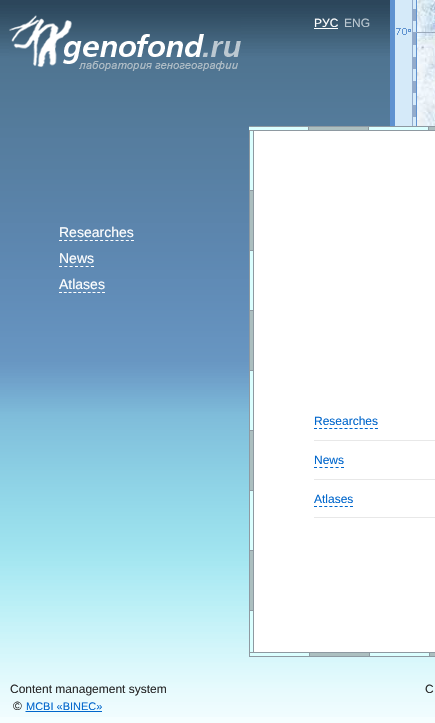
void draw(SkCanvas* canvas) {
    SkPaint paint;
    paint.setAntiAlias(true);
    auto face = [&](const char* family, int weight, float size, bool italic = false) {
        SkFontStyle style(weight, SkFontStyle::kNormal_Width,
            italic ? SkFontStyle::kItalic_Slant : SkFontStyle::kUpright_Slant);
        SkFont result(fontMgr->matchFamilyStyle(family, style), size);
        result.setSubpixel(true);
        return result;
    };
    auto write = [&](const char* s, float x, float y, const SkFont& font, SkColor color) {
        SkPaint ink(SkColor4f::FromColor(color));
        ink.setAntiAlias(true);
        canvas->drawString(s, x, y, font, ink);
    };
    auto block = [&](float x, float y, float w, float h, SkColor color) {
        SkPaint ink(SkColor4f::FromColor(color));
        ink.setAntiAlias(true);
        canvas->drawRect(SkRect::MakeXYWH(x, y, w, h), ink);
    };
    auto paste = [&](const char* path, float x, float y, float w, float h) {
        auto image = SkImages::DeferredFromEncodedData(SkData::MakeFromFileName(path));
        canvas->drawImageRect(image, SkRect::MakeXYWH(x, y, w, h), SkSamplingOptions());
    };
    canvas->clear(SkColorSetRGB(245, 254, 255));
    paste("pic1.png", 0, 0, 435, 717);
    paste("pic2.png", 9, 15, 232, 56);
    auto kFont1 = face("Liberation Sans", 400, 14);
    write("Researches", 59, 237, kFont1, SK_ColorWHITE);
    paint.setStyle(SkPaint::kStroke_Style);
    paint.setStrokeWidth(1);
    paint.setColor(SK_ColorWHITE);
    paint.setPathEffect(SkDashPathEffect::Make({{3, 2.14f}}, 0));
    canvas->drawPath(SkPathBuilder().moveTo(59, 240.5f).lineTo(134, 240.5f).detach(), paint);
    paint.setPathEffect(nullptr);
    write("News", 59, 263, kFont1, SK_ColorWHITE);
    paint.setPathEffect(SkDashPathEffect::Make({{3, 2.33f}}, 0));
    canvas->drawPath(SkPathBuilder().moveTo(59, 266.5f).lineTo(94, 266.5f).detach(), paint);
    paint.setPathEffect(nullptr);
    write("Atlases", 59, 289, kFont1, SK_ColorWHITE);
    paint.setPathEffect(SkDashPathEffect::Make({{3, 1.78f}}, 0));
    canvas->drawPath(SkPathBuilder().moveTo(59, 292.5f).lineTo(105, 292.5f).detach(), paint);
    paint.setPathEffect(nullptr);
    auto kFont2 = face("Liberation Sans", 400, 12);
    write("РУС", 314, 27, kFont2, SK_ColorWHITE);
    block(314, 28, 24, 1, SK_ColorWHITE);
    write("ENG", 344, 27, kFont2, SkColorSetRGB(187, 200, 209));
    paste("pic3.png", 390, 0, 27, 126);
    paste("pic4.png", 417, 0, 18, 126);
    paste("pic5.png", 249, 126, 186, 5);
    paste("pic6.png", 249, 131, 5, 521);
    block(254, 131, 181, 521, SK_ColorWHITE);
    block(314, 440, 121, 1, SkColorSetRGB(232, 232, 232));
    write("Researches", 314, 425, kFont2, SkColorSetRGB(0, 102, 204));
    paint.setColor(SkColorSetRGB(0, 102, 204));
    paint.setPathEffect(SkDashPathEffect::Make({{3, 2.08f}}, 0));
    canvas->drawPath(SkPathBuilder().moveTo(314, 428.5f).lineTo(378, 428.5f).detach(), paint);
    paint.setPathEffect(nullptr);
    block(314, 479, 121, 1, SkColorSetRGB(232, 232, 232));
    write("News", 314, 464, kFont2, SkColorSetRGB(0, 102, 204));
    paint.setPathEffect(SkDashPathEffect::Make({{3, 2.4f}}, 0));
    canvas->drawPath(SkPathBuilder().moveTo(314, 467.5f).lineTo(344, 467.5f).detach(), paint);
    paint.setPathEffect(nullptr);
    block(314, 517, 121, 1, SkColorSetRGB(232, 232, 232));
    write("Atlases", 314, 503, kFont2, SkColorSetRGB(0, 102, 204));
    paint.setPathEffect(SkDashPathEffect::Make({{3, 2.14f}}, 0));
    canvas->drawPath(SkPathBuilder().moveTo(314, 506.5f).lineTo(353, 506.5f).detach(), paint);
    paint.setPathEffect(nullptr);
    paste("pic7.png", 249, 652, 186, 5);
    write("Content management system", 10, 693, kFont2, SkColorSetRGB(41, 41, 41));
    write("©", 13, 710, kFont2, SkColorSetRGB(41, 41, 41));
    auto kFont3 = face("Liberation Sans", 400, 11);
    write("MCBI «BINEC»", 26, 710, kFont3, SkColorSetRGB(0, 102, 204));
    paint.setPathEffect(SkDashPathEffect::Make({{1, 1}}, 0));
    canvas->drawPath(SkPathBuilder().moveTo(25.5f, 711.5f).lineTo(53, 711.5f).detach(), paint);
    paint.setPathEffect(nullptr);
    block(26, 711, 76, 1, SkColorSetRGB(0, 102, 204));
    write("C", 425, 693, kFont2, SkColorSetRGB(41, 41, 41));
}
